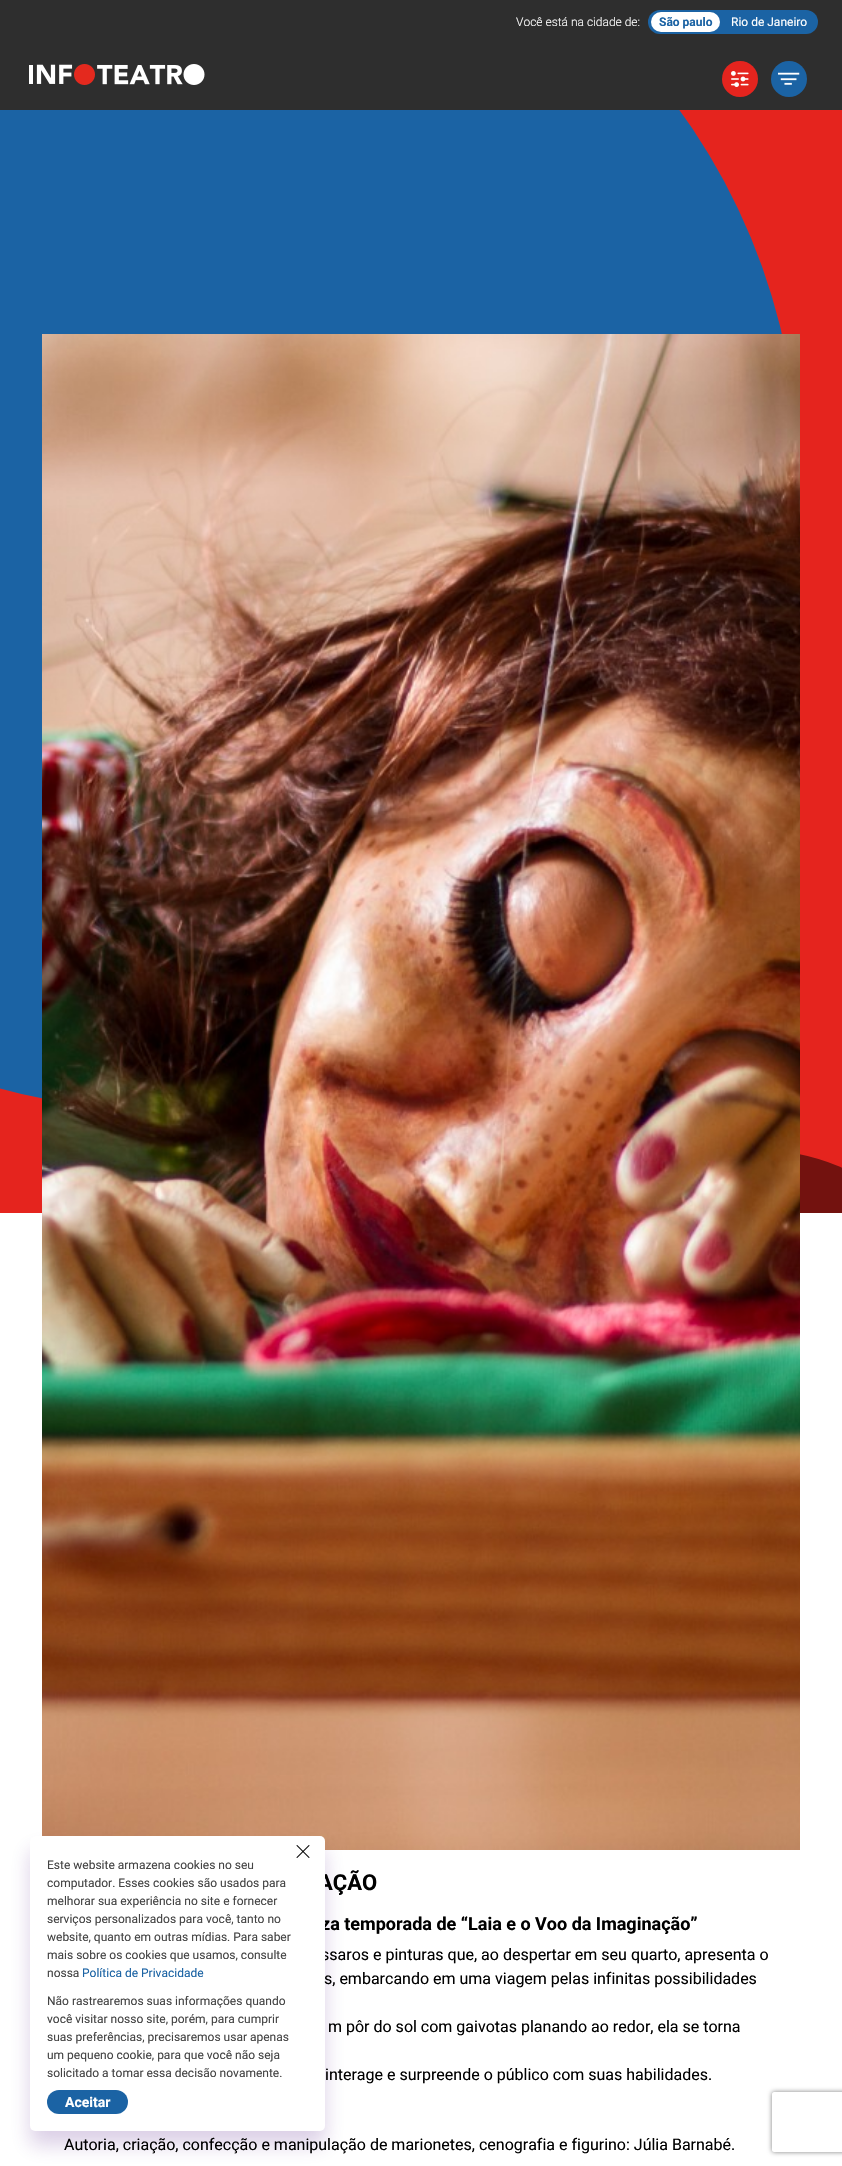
void draw(SkCanvas* canvas) {
    SkPaint paint;
    paint.setAntiAlias(true);
    auto face = [&](const char* family, int weight, float size, bool italic = false) {
        SkFontStyle style(weight, SkFontStyle::kNormal_Width,
            italic ? SkFontStyle::kItalic_Slant : SkFontStyle::kUpright_Slant);
        SkFont result(fontMgr->matchFamilyStyle(family, style), size);
        result.setSubpixel(true);
        return result;
    };
    auto write = [&](const char* s, float x, float y, const SkFont& font, SkColor color) {
        SkPaint ink(SkColor4f::FromColor(color));
        ink.setAntiAlias(true);
        canvas->drawString(s, x, y, font, ink);
    };
    auto block = [&](float x, float y, float w, float h, SkColor color) {
        SkPaint ink(SkColor4f::FromColor(color));
        ink.setAntiAlias(true);
        canvas->drawRect(SkRect::MakeXYWH(x, y, w, h), ink);
    };
    auto card = [&](float x, float y, float w, float h, float radius, SkColor color) {
        SkPaint ink(SkColor4f::FromColor(color));
        ink.setAntiAlias(true);
        canvas->drawRoundRect(SkRect::MakeXYWH(x, y, w, h), radius, radius, ink);
    };
    auto paste = [&](const char* path, float x, float y, float w, float h) {
        auto image = SkImages::DeferredFromEncodedData(SkData::MakeFromFileName(path));
        canvas->drawImageRect(image, SkRect::MakeXYWH(x, y, w, h), SkSamplingOptions());
    };
    canvas->clear(SK_ColorWHITE);
    block(0, 110, 842, 1103, SkColorSetRGB(229, 36, 30));
    paint.setColor(SkColorSetRGB(27, 99, 164));
    canvas->drawCircle(167.5f, 479.5f, 631.5f, paint);
    block(0, 0, 842, 110, SkColorSetRGB(46, 46, 46));
    auto kFont1 = face("Roboto", 300, 12);
    write("Você está na cidade de:", 516, 26, kFont1, SK_ColorWHITE);
    card(648, 10, 170, 24, 12, SkColorSetRGB(27, 99, 164));
    card(651, 12, 69, 20, 10, SK_ColorWHITE);
    auto kFont2 = face("Roboto", 700, 12);
    write("São paulo", 659, 26, kFont2, SkColorSetRGB(27, 99, 164));
    auto kFont3 = face("Roboto", 400, 12);
    write("Rio de Janeiro", 731, 26, kFont3, SK_ColorWHITE);
    paste("pic1.png", 29, 64, 176, 21);
    paint.setColor(SkColorSetRGB(229, 36, 30));
    canvas->drawCircle(740, 79, 18, paint);
    paste("pic2.png", 731, 71, 18, 16);
    paint.setColor(SkColorSetRGB(27, 99, 164));
    canvas->drawCircle(789, 79, 18, paint);
    paste("pic3.png", 778, 72, 22, 13);
    canvas->save();
    canvas->clipRect(SkRect::MakeXYWH(0, 0, 842, 1213));
    paint.setColor(SkColorSetRGB(115, 18, 15));
    canvas->drawCircle(757.5f, 1360.5f, 210.5f, paint);
    canvas->restore();
    paste("pic5.png", 42, 334, 758, 1516);
    paint.setColor(SkColorSetARGB(51, 75, 14, 128));
    paint.setMaskFilter(SkMaskFilter::MakeBlur(kNormal_SkBlurStyle, 10));
    canvas->drawRoundRect(SkRect::MakeXYWH(30, 1850, 295, 295), 5, 5, paint);
    paint.setMaskFilter(nullptr);
    auto kFont4 = face("Roboto", 700, 22);
    write("AÇÃO", 318, 1890, kFont4, SK_ColorBLACK);
    auto kFont5 = face("Roboto", 700, 18);
    write("za temporada de “Laia e o Voo da Imaginação”", 321, 1930, kFont5, SK_ColorBLACK);
    auto kFont6 = face("Roboto", 400, 16);
    write("ssaros e pinturas que, ao despertar em seu quarto, apresenta o", 321, 1960, kFont6, SK_ColorBLACK);
    card(30, 1836, 295, 295, 5, SK_ColorWHITE);
    paste("pic4.png", 296, 1845, 14, 13);
    write("Este website armazena cookies no seu", 47, 1869, kFont3, SkColorSetRGB(68, 68, 68));
    write("computador. Esses cookies são usados para", 47, 1887, kFont3, SkColorSetRGB(68, 68, 68));
    write("melhorar sua experiência no site e fornecer", 47, 1905, kFont3, SkColorSetRGB(68, 68, 68));
    write("serviços personalizados para você, tanto no", 47, 1923, kFont3, SkColorSetRGB(68, 68, 68));
    write("website, quanto em outras mídias. Para saber", 47, 1941, kFont3, SkColorSetRGB(68, 68, 68));
    write("mais sobre os cookies que usamos, consulte", 47, 1959, kFont3, SkColorSetRGB(68, 68, 68));
    write("nossa", 47, 1977, kFont3, SkColorSetRGB(68, 68, 68));
    write("Política de Privacidade", 82, 1977, kFont3, SkColorSetRGB(27, 99, 164));
    write("Não rastrearemos suas informações quando", 47, 2005, kFont3, SkColorSetRGB(68, 68, 68));
    write("você visitar nosso site, porém, para cumprir", 47, 2023, kFont3, SkColorSetRGB(68, 68, 68));
    write("suas preferências, precisaremos usar apenas", 47, 2041, kFont3, SkColorSetRGB(68, 68, 68));
    write("um pequeno cookie, para que você não seja", 47, 2059, kFont3, SkColorSetRGB(68, 68, 68));
    write("solicitado a tomar essa decisão novamente.", 47, 2077, kFont3, SkColorSetRGB(68, 68, 68));
    card(47, 2090, 81, 24, 12, SkColorSetRGB(27, 99, 164));
    auto kFont7 = face("Roboto", 700, 14);
    write("Aceitar", 65, 2107, kFont7, SK_ColorWHITE);
    write("s, embarcando em uma viagem pelas infinitas possibilidades", 324, 1984, kFont6, SK_ColorBLACK);
    write("m pôr do sol com gaivotas planando ao redor, ela se torna", 328, 2032, kFont6, SK_ColorBLACK);
    write("interage e surpreende o público com suas habilidades.", 325, 2080, kFont6, SK_ColorBLACK);
    write("Autoria, criação, confecção e manipulação de marionetes, cenografia e figurino: Júlia Barnabé.", 64, 2150, kFont6, SK_ColorBLACK);
    canvas->save();
    canvas->clipPath(SkPathBuilder(SkPathFillType::kEvenOdd).moveTo(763, 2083).lineTo(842, 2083).lineTo(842, 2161).lineTo(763, 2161).close().moveTo(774, 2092).lineTo(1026, 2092).cubicTo(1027, 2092, 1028, 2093, 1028, 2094).lineTo(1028, 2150).cubicTo(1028, 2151, 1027, 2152, 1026, 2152).lineTo(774, 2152).cubicTo(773, 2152, 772, 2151, 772, 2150).lineTo(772, 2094).cubicTo(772, 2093, 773, 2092, 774, 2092).close().detach(), true);
    paint.setColor(SkColorSetRGB(128, 128, 128));
    paint.setMaskFilter(SkMaskFilter::MakeBlur(kNormal_SkBlurStyle, 2.5f));
    canvas->drawRoundRect(SkRect::MakeXYWH(772, 2092, 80, 60), 2, 2, paint);
    paint.setMaskFilter(nullptr);
    canvas->restore();
}
